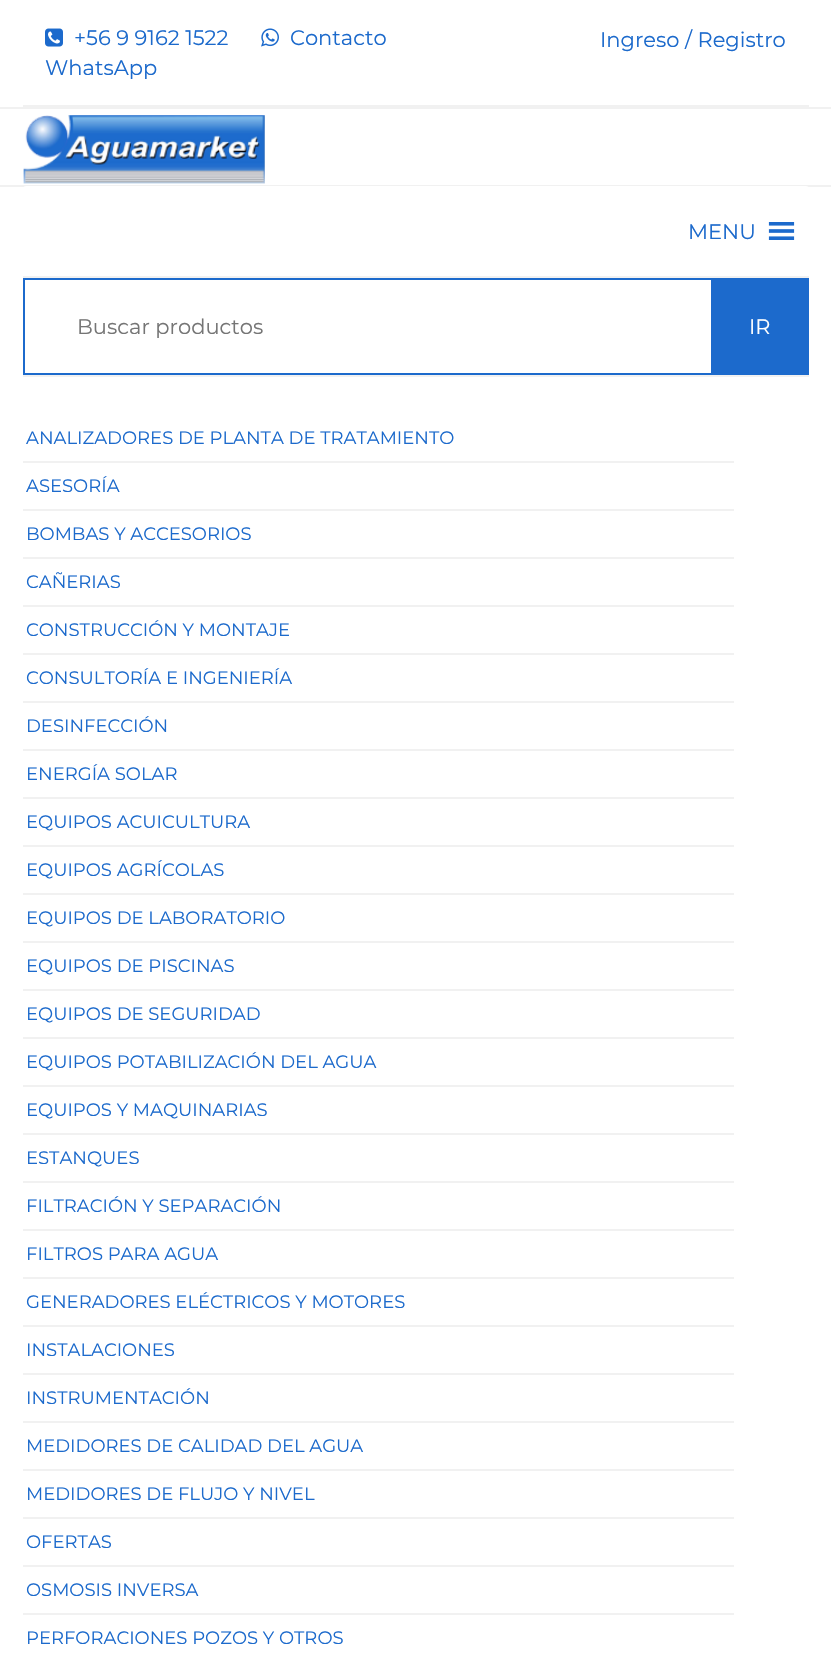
void draw(SkCanvas* canvas) {
    SkPaint paint;
    paint.setAntiAlias(true);
    auto face = [&](const char* family, int weight, float size, bool italic = false) {
        SkFontStyle style(weight, SkFontStyle::kNormal_Width,
            italic ? SkFontStyle::kItalic_Slant : SkFontStyle::kUpright_Slant);
        SkFont result(fontMgr->matchFamilyStyle(family, style), size);
        result.setSubpixel(true);
        return result;
    };
    auto write = [&](const char* s, float x, float y, const SkFont& font, SkColor color) {
        SkPaint ink(SkColor4f::FromColor(color));
        ink.setAntiAlias(true);
        canvas->drawString(s, x, y, font, ink);
    };
    auto block = [&](float x, float y, float w, float h, SkColor color) {
        SkPaint ink(SkColor4f::FromColor(color));
        ink.setAntiAlias(true);
        canvas->drawRect(SkRect::MakeXYWH(x, y, w, h), ink);
    };
    auto card = [&](float x, float y, float w, float h, float radius, SkColor color) {
        SkPaint ink(SkColor4f::FromColor(color));
        ink.setAntiAlias(true);
        canvas->drawRoundRect(SkRect::MakeXYWH(x, y, w, h), radius, radius, ink);
    };
    auto paste = [&](const char* path, float x, float y, float w, float h) {
        auto image = SkImages::DeferredFromEncodedData(SkData::MakeFromFileName(path));
        canvas->drawImageRect(image, SkRect::MakeXYWH(x, y, w, h), SkSamplingOptions());
    };
    canvas->clear(SK_ColorWHITE);
    block(23, 105, 786, 2, SkColorSetRGB(241, 241, 241));
    paste("pic1.png", 261, 28, 18, 19);
    auto kFont1 = face("Montserrat", 400, 21);
    write("Contacto", 290, 45, kFont1, SkColorSetRGB(28, 106, 204));
    write("WhatsApp", 45, 75, kFont1, SkColorSetRGB(28, 106, 204));
    paste("pic2.png", 45, 28, 18, 19);
    write("+56 9 9162 1522", 74, 45, kFont1, SkColorSetRGB(28, 106, 204));
    write("Ingreso / Registro", 600, 47, kFont1, SkColorSetRGB(28, 106, 204));
    block(23, 276, 786, 2, SkColorSetRGB(241, 241, 241));
    block(0, 107, 831, 2, SkColorSetRGB(241, 241, 241));
    block(0, 185, 831, 2, SkColorSetRGB(241, 241, 241));
    paste("pic3.png", 23, 115, 242, 69);
    card(23, 186, 786, 90, 3, SK_ColorWHITE);
    write("MENU", 688, 239, kFont1, SkColorSetRGB(28, 106, 204));
    paste("pic4.png", 768, 222, 27, 18);
    block(23, 375, 786, 2, SkColorSetRGB(241, 241, 241));
    paint.setStyle(SkPaint::kStroke_Style);
    paint.setStrokeWidth(2);
    paint.setColor(SkColorSetRGB(28, 106, 204));
    canvas->drawRect(SkRect::MakeXYWH(24, 279, 784, 95), paint);
    write("Buscar productos", 77, 334, kFont1, SkColorSetRGB(117, 117, 117));
    block(711, 280, 96, 93, SkColorSetRGB(28, 106, 204));
    write("IR", 749, 334, kFont1, SK_ColorWHITE);
    block(23, 461, 711, 2, SkColorSetRGB(241, 241, 241));
    auto kFont2 = face("Montserrat", 400, 18);
    write("ANALIZADORES DE PLANTA DE TRATAMIENTO", 26, 444, kFont2, SkColorSetRGB(28, 106, 204));
    block(23, 509, 711, 2, SkColorSetRGB(241, 241, 241));
    write("ASESORÍA", 26, 492, kFont2, SkColorSetRGB(28, 106, 204));
    block(23, 557, 711, 2, SkColorSetRGB(241, 241, 241));
    write("BOMBAS Y ACCESORIOS", 26, 540, kFont2, SkColorSetRGB(28, 106, 204));
    block(23, 605, 711, 2, SkColorSetRGB(241, 241, 241));
    write("CAÑERIAS", 26, 588, kFont2, SkColorSetRGB(28, 106, 204));
    block(23, 653, 711, 2, SkColorSetRGB(241, 241, 241));
    write("CONSTRUCCIÓN Y MONTAJE", 26, 636, kFont2, SkColorSetRGB(28, 106, 204));
    block(23, 701, 711, 2, SkColorSetRGB(241, 241, 241));
    write("CONSULTORÍA E INGENIERÍA", 26, 684, kFont2, SkColorSetRGB(28, 106, 204));
    block(23, 749, 711, 2, SkColorSetRGB(241, 241, 241));
    write("DESINFECCIÓN", 26, 732, kFont2, SkColorSetRGB(28, 106, 204));
    block(23, 797, 711, 2, SkColorSetRGB(241, 241, 241));
    write("ENERGÍA SOLAR", 26, 780, kFont2, SkColorSetRGB(28, 106, 204));
    block(23, 845, 711, 2, SkColorSetRGB(241, 241, 241));
    write("EQUIPOS ACUICULTURA", 26, 828, kFont2, SkColorSetRGB(28, 106, 204));
    block(23, 893, 711, 2, SkColorSetRGB(241, 241, 241));
    write("EQUIPOS AGRÍCOLAS", 26, 876, kFont2, SkColorSetRGB(28, 106, 204));
    block(23, 941, 711, 2, SkColorSetRGB(241, 241, 241));
    write("EQUIPOS DE LABORATORIO", 26, 924, kFont2, SkColorSetRGB(28, 106, 204));
    block(23, 989, 711, 2, SkColorSetRGB(241, 241, 241));
    write("EQUIPOS DE PISCINAS", 26, 972, kFont2, SkColorSetRGB(28, 106, 204));
    block(23, 1037, 711, 2, SkColorSetRGB(241, 241, 241));
    write("EQUIPOS DE SEGURIDAD", 26, 1020, kFont2, SkColorSetRGB(28, 106, 204));
    block(23, 1085, 711, 2, SkColorSetRGB(241, 241, 241));
    write("EQUIPOS POTABILIZACIÓN DEL AGUA", 26, 1068, kFont2, SkColorSetRGB(28, 106, 204));
    block(23, 1133, 711, 2, SkColorSetRGB(241, 241, 241));
    write("EQUIPOS Y MAQUINARIAS", 26, 1116, kFont2, SkColorSetRGB(28, 106, 204));
    block(23, 1181, 711, 2, SkColorSetRGB(241, 241, 241));
    write("ESTANQUES", 26, 1164, kFont2, SkColorSetRGB(28, 106, 204));
    block(23, 1229, 711, 2, SkColorSetRGB(241, 241, 241));
    write("FILTRACIÓN Y SEPARACIÓN", 26, 1212, kFont2, SkColorSetRGB(28, 106, 204));
    block(23, 1277, 711, 2, SkColorSetRGB(241, 241, 241));
    write("FILTROS PARA AGUA", 26, 1260, kFont2, SkColorSetRGB(28, 106, 204));
    block(23, 1325, 711, 2, SkColorSetRGB(241, 241, 241));
    write("GENERADORES ELÉCTRICOS Y MOTORES", 26, 1308, kFont2, SkColorSetRGB(28, 106, 204));
    block(23, 1373, 711, 2, SkColorSetRGB(241, 241, 241));
    write("INSTALACIONES", 26, 1356, kFont2, SkColorSetRGB(28, 106, 204));
    block(23, 1421, 711, 2, SkColorSetRGB(241, 241, 241));
    write("INSTRUMENTACIÓN", 26, 1404, kFont2, SkColorSetRGB(28, 106, 204));
    block(23, 1469, 711, 2, SkColorSetRGB(241, 241, 241));
    write("MEDIDORES DE CALIDAD DEL AGUA", 26, 1452, kFont2, SkColorSetRGB(28, 106, 204));
    block(23, 1517, 711, 2, SkColorSetRGB(241, 241, 241));
    write("MEDIDORES DE FLUJO Y NIVEL", 26, 1500, kFont2, SkColorSetRGB(28, 106, 204));
    block(23, 1565, 711, 2, SkColorSetRGB(241, 241, 241));
    write("OFERTAS", 26, 1548, kFont2, SkColorSetRGB(28, 106, 204));
    block(23, 1613, 711, 2, SkColorSetRGB(241, 241, 241));
    write("OSMOSIS INVERSA", 26, 1596, kFont2, SkColorSetRGB(28, 106, 204));
    write("PERFORACIONES POZOS Y OTROS", 26, 1644, kFont2, SkColorSetRGB(28, 106, 204));
}
